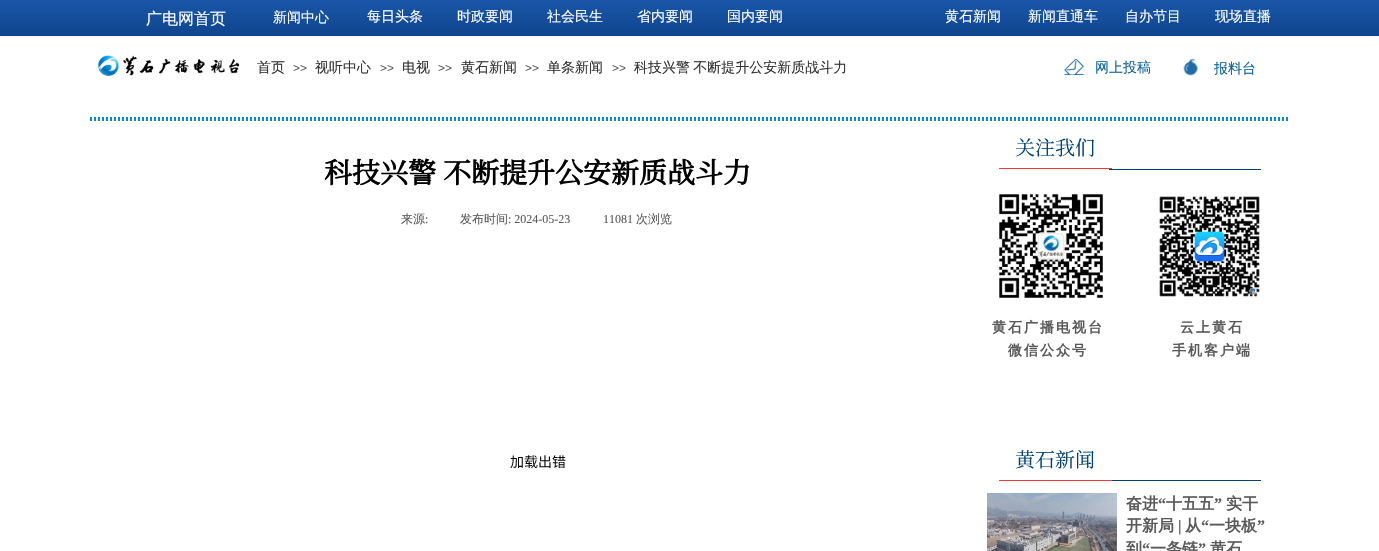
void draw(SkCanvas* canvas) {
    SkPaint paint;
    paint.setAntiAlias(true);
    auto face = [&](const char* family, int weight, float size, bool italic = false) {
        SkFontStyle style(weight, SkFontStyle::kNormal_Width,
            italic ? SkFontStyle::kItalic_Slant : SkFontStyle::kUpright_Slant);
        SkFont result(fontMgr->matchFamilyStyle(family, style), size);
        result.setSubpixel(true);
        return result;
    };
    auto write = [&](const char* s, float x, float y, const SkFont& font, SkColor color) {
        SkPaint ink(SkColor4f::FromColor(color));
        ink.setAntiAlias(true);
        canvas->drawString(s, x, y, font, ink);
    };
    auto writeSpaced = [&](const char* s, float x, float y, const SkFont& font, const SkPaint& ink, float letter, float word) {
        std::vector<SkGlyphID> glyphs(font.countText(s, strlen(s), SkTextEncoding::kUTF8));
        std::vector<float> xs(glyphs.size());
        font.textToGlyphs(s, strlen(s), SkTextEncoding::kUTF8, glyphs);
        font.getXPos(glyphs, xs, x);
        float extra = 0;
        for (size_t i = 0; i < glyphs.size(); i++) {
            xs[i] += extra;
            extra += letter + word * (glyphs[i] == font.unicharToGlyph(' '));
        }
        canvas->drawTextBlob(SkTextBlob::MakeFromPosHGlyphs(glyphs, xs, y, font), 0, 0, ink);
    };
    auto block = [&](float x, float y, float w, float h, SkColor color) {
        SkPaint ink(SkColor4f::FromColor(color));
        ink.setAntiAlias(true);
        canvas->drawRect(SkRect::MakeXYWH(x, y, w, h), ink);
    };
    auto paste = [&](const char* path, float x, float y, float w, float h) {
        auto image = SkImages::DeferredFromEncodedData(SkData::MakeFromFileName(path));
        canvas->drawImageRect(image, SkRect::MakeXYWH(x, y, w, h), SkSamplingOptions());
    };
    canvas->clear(SK_ColorWHITE);
    paste("pic1.png", 0, 0, 1379, 36);
    auto kFont1 = face("WenQuanYi Zen Hei", 500, 16);
    write("广电网首页", 146, 24, kFont1, SK_ColorWHITE);
    auto kFont2 = face("WenQuanYi Zen Hei", 500, 14);
    write("新闻中心", 273, 22, kFont2, SK_ColorWHITE);
    write("每日头条", 367, 21, kFont2, SK_ColorWHITE);
    write("时政要闻", 457, 21, kFont2, SK_ColorWHITE);
    write("社会民生", 547, 21, kFont2, SK_ColorWHITE);
    write("省内要闻", 637, 21, kFont2, SK_ColorWHITE);
    write("国内要闻", 727, 21, kFont2, SK_ColorWHITE);
    write("黄石新闻", 945, 21, kFont2, SK_ColorWHITE);
    write("新闻直通车", 1028, 21, kFont2, SK_ColorWHITE);
    write("自办节目", 1125, 21, kFont2, SK_ColorWHITE);
    write("现场直播", 1215, 21, kFont2, SK_ColorWHITE);
    paste("pic2.png", 98, 55, 142, 21);
    write("首页", 257, 72, kFont2, SkColorSetRGB(51, 51, 51));
    auto kFont3 = face("Liberation Sans", 400, 12);
    write(">>", 293, 72, kFont3, SkColorSetRGB(90, 90, 90));
    write("视听中心", 315, 72, kFont2, SkColorSetRGB(51, 51, 51));
    write(">>", 380, 72, kFont3, SkColorSetRGB(90, 90, 90));
    write("电视", 402, 72, kFont2, SkColorSetRGB(51, 51, 51));
    write(">>", 438, 72, kFont3, SkColorSetRGB(90, 90, 90));
    write("黄石新闻", 461, 72, kFont2, SkColorSetRGB(51, 51, 51));
    write(">>", 525, 72, kFont3, SkColorSetRGB(90, 90, 90));
    write("单条新闻", 547, 72, kFont2, SkColorSetRGB(51, 51, 51));
    write(">>", 612, 72, kFont3, SkColorSetRGB(90, 90, 90));
    paint.setColor(SkColorSetRGB(51, 51, 51));
    writeSpaced("科技兴警 不断提升公安新质战斗力", 634, 72, kFont2, paint, 0, -1);
    paste("pic3.png", 1063, 53, 22, 24);
    write("网上投稿", 1095, 72, kFont2, SkColorSetRGB(15, 100, 155));
    paste("pic4.png", 1181, 53, 19, 24);
    write("报料台", 1214, 73, kFont2, SkColorSetRGB(15, 100, 155));
    paint.setStyle(SkPaint::kStroke_Style);
    paint.setStrokeWidth(2);
    paint.setColor(SkColorSetRGB(2, 139, 207));
    paint.setPathEffect(SkDashPathEffect::Make({{2, 2}}, 0));
    canvas->drawPath(SkPathBuilder().moveTo(90, 118).lineTo(1290, 118).detach(), paint);
    paint.setPathEffect(nullptr);
    paint.setPathEffect(SkDashPathEffect::Make({{2, 2}}, 0));
    canvas->drawPath(SkPathBuilder().moveTo(90, 120).lineTo(1290, 120).detach(), paint);
    paint.setPathEffect(nullptr);
    block(999, 168, 113, 1, SkColorSetRGB(240, 57, 61));
    auto kFont4 = face("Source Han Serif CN", 400, 20);
    write("关注我们", 1015, 155, kFont4, SkColorSetRGB(0, 66, 114));
    auto kFont5 = face("Source Han Serif CN", 700, 28);
    write("科技兴警", 324, 183, kFont5, SkColorSetRGB(1, 1, 1));
    write("不断提升公安新质战斗力", 443, 183, kFont5, SkColorSetRGB(1, 1, 1));
    auto kFont6 = face("WenQuanYi Zen Hei", 500, 12);
    write("来源", 401, 223, kFont6, SkColorSetRGB(90, 90, 90));
    auto kFont7 = face("Liberation Serif", 400, 12);
    write(":", 425, 223, kFont7, SkColorSetRGB(90, 90, 90));
    write("发布时间", 460, 223, kFont6, SkColorSetRGB(90, 90, 90));
    write(": 2024-05-23", 508, 223, kFont7, SkColorSetRGB(90, 90, 90));
    write("11081", 603, 223, kFont7, SkColorSetRGB(90, 90, 90));
    write("次浏览", 636, 223, kFont6, SkColorSetRGB(90, 90, 90));
    paste("pic5.png", 510, 455, 56, 14);
    block(1109, 169, 152, 1, SkColorSetRGB(0, 66, 114));
    paste("pic6.png", 999, 194, 104, 104);
    paste("pic7.png", 1159, 196, 101, 101);
    auto kFont8 = face("WenQuanYi Zen Hei", 700, 14);
    paint.setStyle(SkPaint::kFill_Style);
    paint.setColor(SkColorSetRGB(90, 90, 90));
    writeSpaced("黄石广播电视台", 992, 332, kFont8, paint, 2, 0);
    writeSpaced("微信公众号", 1008, 355, kFont8, paint, 2, 0);
    writeSpaced("云上黄石", 1180, 332, kFont8, paint, 2, 0);
    writeSpaced("手机客户端", 1172, 355, kFont8, paint, 2, 0);
    block(1109, 480, 152, 1, SkColorSetRGB(0, 66, 114));
    block(999, 480, 113, 1, SkColorSetRGB(240, 57, 61));
    write("黄石新闻", 1015, 467, kFont4, SkColorSetRGB(0, 66, 114));
    paste("pic8.png", 987, 493, 130, 58);
    auto kFont9 = face("WenQuanYi Zen Hei", 700, 16);
    write("奋进", 1126, 509, kFont9, SkColorSetRGB(90, 90, 90));
    auto kFont10 = face("Liberation Serif", 700, 16);
    write("“", 1158, 509, kFont10, SkColorSetRGB(90, 90, 90));
    write("十五五", 1166, 509, kFont9, SkColorSetRGB(90, 90, 90));
    write("”", 1214, 509, kFont10, SkColorSetRGB(90, 90, 90));
    write("实干", 1226, 509, kFont9, SkColorSetRGB(90, 90, 90));
    write("开新局", 1126, 531, kFont9, SkColorSetRGB(90, 90, 90));
    write("|", 1178, 531, kFont10, SkColorSetRGB(90, 90, 90));
    write("从", 1185, 531, kFont9, SkColorSetRGB(90, 90, 90));
    write("“", 1201, 531, kFont10, SkColorSetRGB(90, 90, 90));
    write("一块板", 1209, 531, kFont9, SkColorSetRGB(90, 90, 90));
    write("”", 1257, 531, kFont10, SkColorSetRGB(90, 90, 90));
    write("到", 1126, 554, kFont9, SkColorSetRGB(90, 90, 90));
    write("“", 1142, 554, kFont10, SkColorSetRGB(90, 90, 90));
    write("一条链", 1150, 554, kFont9, SkColorSetRGB(90, 90, 90));
    write("”", 1198, 554, kFont10, SkColorSetRGB(90, 90, 90));
    write("黄石", 1210, 554, kFont9, SkColorSetRGB(90, 90, 90));
}
